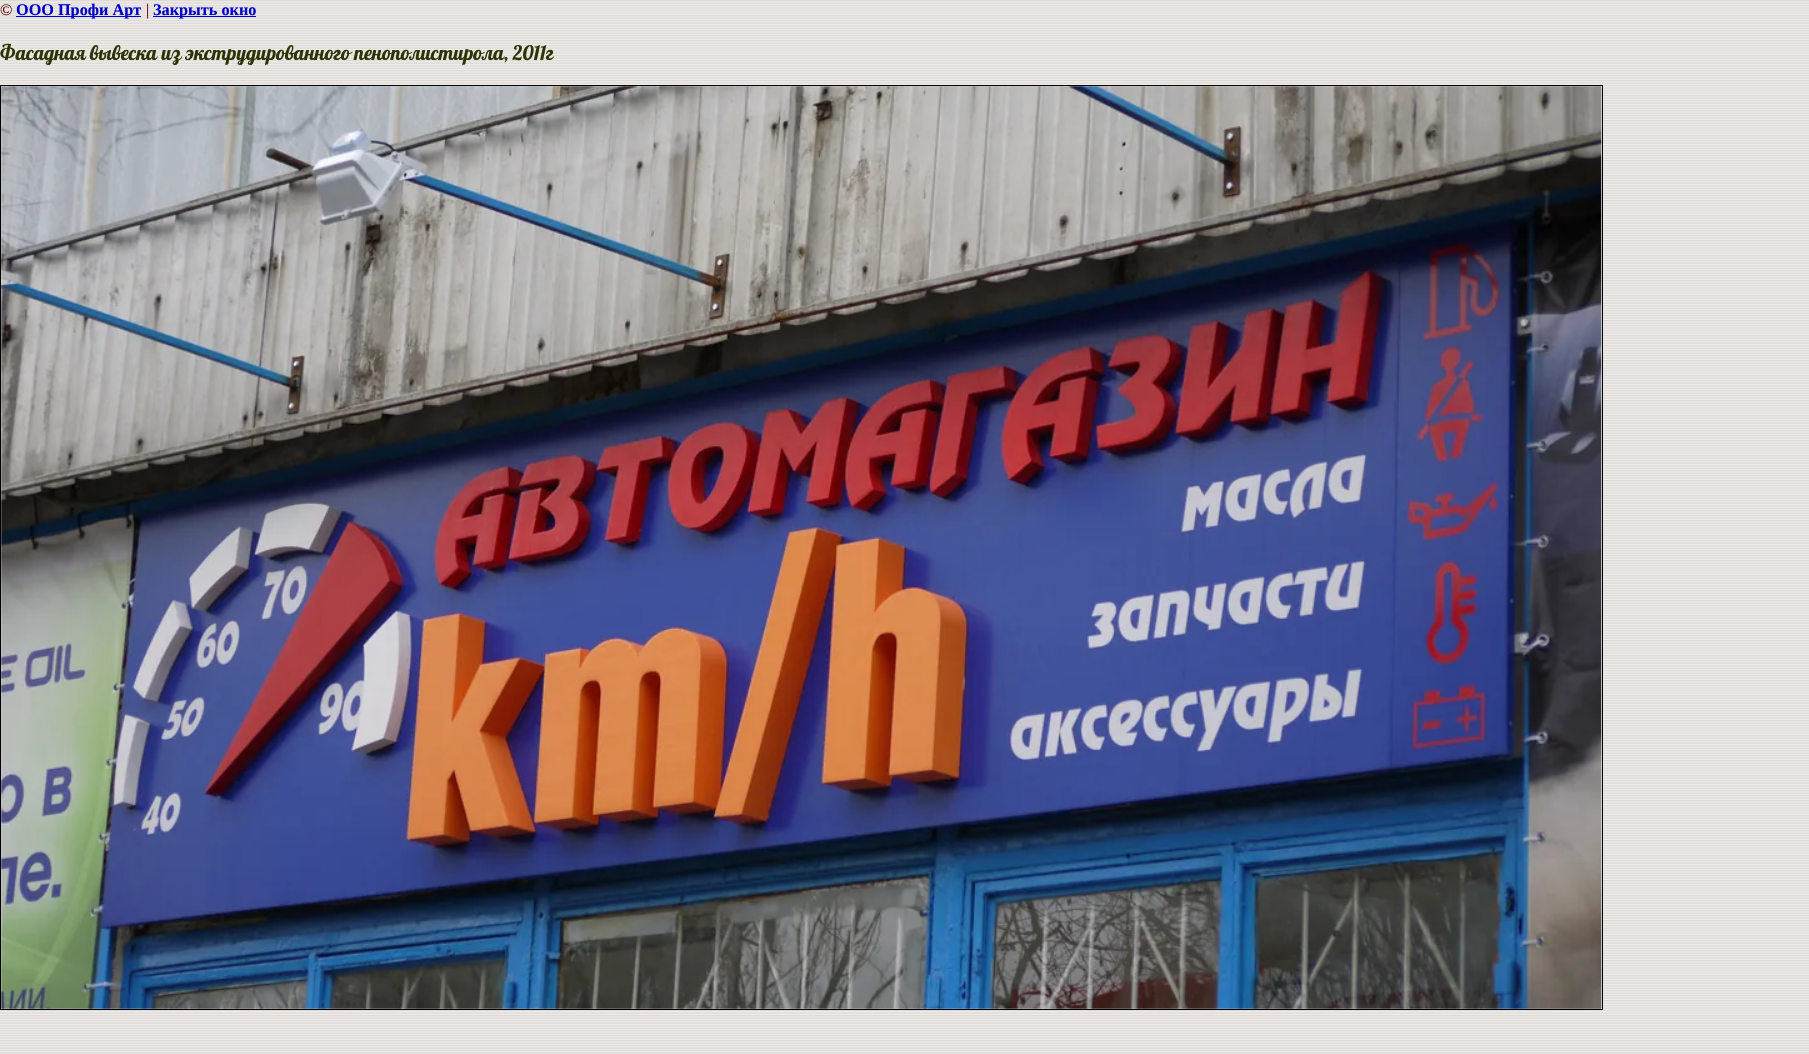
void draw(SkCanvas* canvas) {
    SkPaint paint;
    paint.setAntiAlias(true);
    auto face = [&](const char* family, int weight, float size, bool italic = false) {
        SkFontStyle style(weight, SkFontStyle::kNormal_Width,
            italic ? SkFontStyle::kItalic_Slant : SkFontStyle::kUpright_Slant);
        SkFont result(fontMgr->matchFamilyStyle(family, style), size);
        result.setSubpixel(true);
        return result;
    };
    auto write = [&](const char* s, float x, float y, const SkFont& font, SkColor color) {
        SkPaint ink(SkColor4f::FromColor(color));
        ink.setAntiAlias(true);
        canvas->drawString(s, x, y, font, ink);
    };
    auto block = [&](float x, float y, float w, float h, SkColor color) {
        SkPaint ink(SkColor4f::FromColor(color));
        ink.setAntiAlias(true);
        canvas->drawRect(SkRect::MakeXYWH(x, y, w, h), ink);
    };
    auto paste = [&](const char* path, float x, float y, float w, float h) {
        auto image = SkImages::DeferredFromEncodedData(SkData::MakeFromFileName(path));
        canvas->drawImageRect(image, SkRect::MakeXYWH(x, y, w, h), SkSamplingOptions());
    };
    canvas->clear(SK_ColorWHITE);
    paste("pic1.png", 0, 0, 1809, 1054);
    auto kFont1 = face("Liberation Serif", 400, 16.25f);
    write("©", 0, 15, kFont1, SkColorSetRGB(86, 0, 0));
    block(16, 16, 125, 1, SkColorSetRGB(0, 0, 204));
    auto kFont2 = face("Liberation Serif", 700, 16.25f);
    write("ООО Профи Арт", 16, 15, kFont2, SkColorSetRGB(0, 0, 204));
    write("|", 146, 15, kFont1, SkColorSetRGB(86, 0, 0));
    block(153, 16, 103, 1, SkColorSetRGB(0, 0, 204));
    write("Закрыть окно", 153, 15, kFont2, SkColorSetRGB(0, 0, 204));
    auto kFont3 = face("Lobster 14", 400, 20);
    write("Фасадная вывеска из экструдированного пенополистирола, 2011г", 0, 60, kFont3, SkColorSetRGB(45, 51, 2));
    paint.setStyle(SkPaint::kStroke_Style);
    paint.setStrokeWidth(1);
    paint.setColor(SK_ColorBLACK);
    canvas->drawRect(SkRect::MakeXYWH(0.5f, 85.5f, 1602, 924), paint);
    paste("pic2.png", 1, 86, 1601, 923);
}
